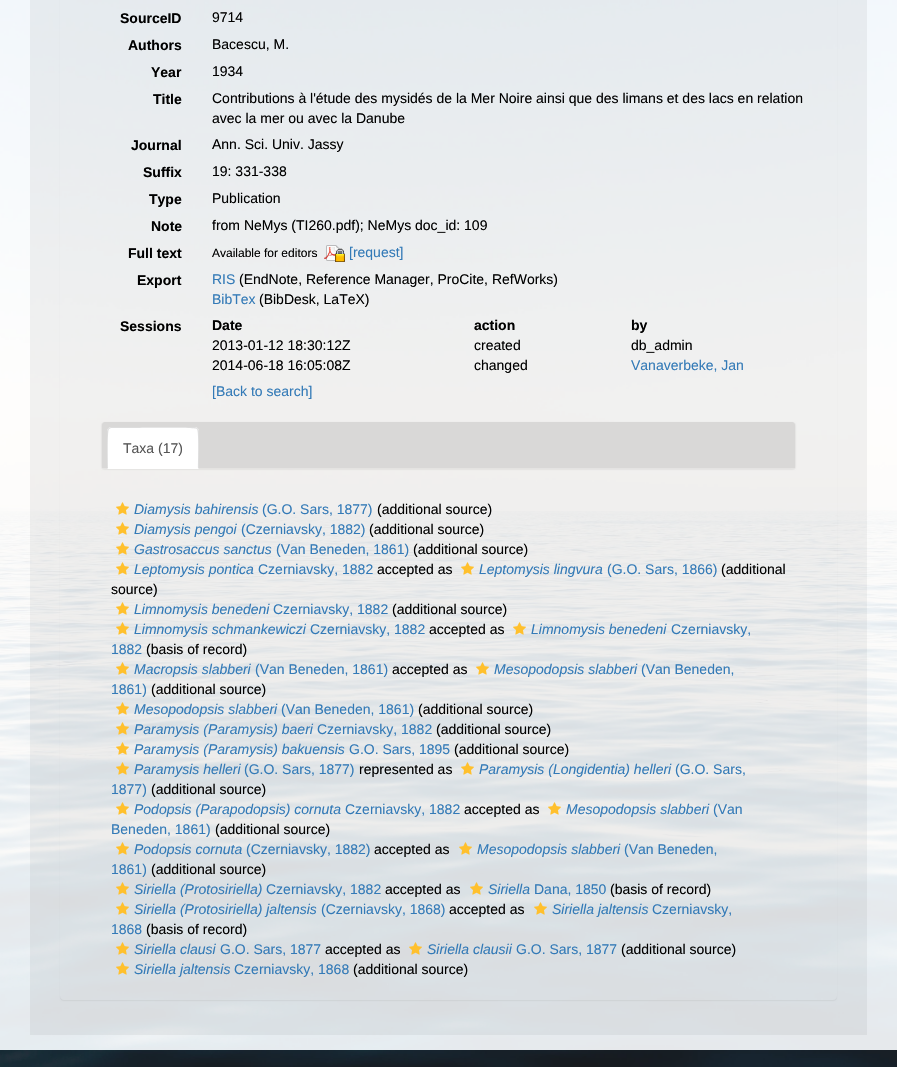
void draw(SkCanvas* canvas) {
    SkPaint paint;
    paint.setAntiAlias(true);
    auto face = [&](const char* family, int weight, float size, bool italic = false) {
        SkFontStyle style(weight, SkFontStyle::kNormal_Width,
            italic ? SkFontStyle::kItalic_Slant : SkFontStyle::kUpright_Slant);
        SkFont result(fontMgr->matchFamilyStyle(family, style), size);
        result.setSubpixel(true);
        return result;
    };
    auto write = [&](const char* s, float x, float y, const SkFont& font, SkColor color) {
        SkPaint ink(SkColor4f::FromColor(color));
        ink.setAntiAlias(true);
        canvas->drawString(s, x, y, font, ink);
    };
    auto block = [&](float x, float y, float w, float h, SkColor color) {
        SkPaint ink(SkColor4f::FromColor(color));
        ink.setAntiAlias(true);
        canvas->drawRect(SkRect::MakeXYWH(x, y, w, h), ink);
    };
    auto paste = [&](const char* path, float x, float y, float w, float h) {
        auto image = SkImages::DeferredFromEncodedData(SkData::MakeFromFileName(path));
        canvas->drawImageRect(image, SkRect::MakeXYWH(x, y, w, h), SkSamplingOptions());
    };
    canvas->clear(SK_ColorWHITE);
    paste("pic1.png", 0, 0, 897, 1067);
    canvas->save();
    canvas->clipPath(SkPathBuilder(SkPathFillType::kEvenOdd).moveTo(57, 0).lineTo(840, 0).lineTo(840, 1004).lineTo(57, 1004).close().moveTo(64, -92).lineTo(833, -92).cubicTo(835, -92, 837, -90, 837, -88).lineTo(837, 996).cubicTo(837, 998, 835, 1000, 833, 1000).lineTo(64, 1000).cubicTo(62, 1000, 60, 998, 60, 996).lineTo(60, -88).cubicTo(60, -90, 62, -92, 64, -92).close().detach(), true);
    paint.setColor(SkColorSetARGB(13, 0, 0, 0));
    paint.setMaskFilter(SkMaskFilter::MakeBlur(kNormal_SkBlurStyle, 0.5f));
    canvas->drawRoundRect(SkRect::MakeXYWH(60, -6, 777, 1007), 4, 4, paint);
    paint.setMaskFilter(nullptr);
    canvas->restore();
    auto kFont1 = face("Liberation Sans", 700, 14);
    write("SourceID", 120, 23, kFont1, SK_ColorBLACK);
    auto kFont2 = face("Liberation Sans", 400, 14);
    write("9714", 212, 22, kFont2, SK_ColorBLACK);
    write("Authors", 128, 50, kFont1, SK_ColorBLACK);
    write("Bacescu, M.", 212, 49, kFont2, SK_ColorBLACK);
    write("Year", 151, 77, kFont1, SK_ColorBLACK);
    write("1934", 212, 76, kFont2, SK_ColorBLACK);
    write("Title", 153, 104, kFont1, SK_ColorBLACK);
    write("Contributions à l'étude des mysidés de la Mer Noire ainsi que des limans et des lacs en relation", 212, 103, kFont2, SK_ColorBLACK);
    write("avec la mer ou avec la Danube", 212, 123, kFont2, SK_ColorBLACK);
    write("Journal", 131, 150, kFont1, SK_ColorBLACK);
    write("Ann. Sci. Univ. Jassy", 212, 149, kFont2, SK_ColorBLACK);
    write("Suffix", 143, 177, kFont1, SK_ColorBLACK);
    write("19: 331-338", 212, 176, kFont2, SK_ColorBLACK);
    write("Type", 149, 204, kFont1, SK_ColorBLACK);
    write("Publication", 212, 203, kFont2, SK_ColorBLACK);
    write("Note", 151, 231, kFont1, SK_ColorBLACK);
    write("from NeMys (TI260.pdf); NeMys doc_id: 109", 212, 230, kFont2, SK_ColorBLACK);
    write("Full text", 128, 258, kFont1, SK_ColorBLACK);
    auto kFont3 = face("Liberation Sans", 400, 12);
    write("Available for editors", 212, 257, kFont3, SK_ColorBLACK);
    paste("pic2.png", 324, 245, 21, 17);
    write("[request]", 349, 257, kFont2, SkColorSetRGB(51, 122, 183));
    write("Export", 137, 285, kFont1, SK_ColorBLACK);
    write("RIS", 212, 284, kFont2, SkColorSetRGB(51, 122, 183));
    write("(EndNote, Reference Manager, ProCite, RefWorks)", 239, 284, kFont2, SK_ColorBLACK);
    write("BibTex", 212, 304, kFont2, SkColorSetRGB(51, 122, 183));
    write("(BibDesk, LaTeX)", 259, 304, kFont2, SK_ColorBLACK);
    write("Sessions", 120, 331, kFont1, SK_ColorBLACK);
    write("Date", 212, 330, kFont1, SK_ColorBLACK);
    write("action", 474, 330, kFont1, SK_ColorBLACK);
    write("by", 631, 330, kFont1, SK_ColorBLACK);
    write("2013-01-12 18:30:12Z", 212, 350, kFont2, SK_ColorBLACK);
    write("created", 474, 350, kFont2, SK_ColorBLACK);
    write("db_admin", 631, 350, kFont2, SK_ColorBLACK);
    write("2014-06-18 16:05:08Z", 212, 370, kFont2, SK_ColorBLACK);
    write("changed", 474, 370, kFont2, SK_ColorBLACK);
    write("Vanaverbeke, Jan", 631, 370, kFont2, SkColorSetRGB(51, 122, 183));
    write("[Back to search]", 212, 396, kFont2, SkColorSetRGB(51, 122, 183));
    paint.setMaskFilter(SkMaskFilter::MakeBlur(kNormal_SkBlurStyle, 0.5f));
    canvas->drawRoundRect(SkRect::MakeXYWH(101, 422, 695, 48), 4, 4, paint);
    paint.setMaskFilter(nullptr);
    paint.setColor(SkColorSetRGB(217, 216, 215));
    canvas->drawPath(SkPathBuilder().moveTo(105, 422).lineTo(792, 422).cubicTo(793.5f, 422, 795, 423.5f, 795, 425).lineTo(795, 468).lineTo(102, 468).lineTo(102, 425).cubicTo(102, 423.5f, 103.5f, 422, 105, 422).close().detach(), paint);
    paint.setColor(SK_ColorWHITE);
    canvas->drawPath(SkPathBuilder().moveTo(111, 427).lineTo(195, 427).cubicTo(197, 427, 199, 429, 199, 431).lineTo(199, 469).lineTo(107, 469).lineTo(107, 431).cubicTo(107, 429, 109, 427, 111, 427).close().detach(), paint);
    paint.setColor(SkColorSetRGB(221, 221, 221));
    canvas->drawPath(SkPathBuilder().moveTo(111, 427).lineTo(108, 428).lineTo(109, 429).lineTo(111, 428).lineTo(125, 428).cubicTo(133, 428, 195, 427, 197, 429).lineTo(198, 428).lineTo(195, 427).close().detach(), paint);
    canvas->drawPath(SkPathBuilder().moveTo(199, 469).lineTo(199, 431).cubicTo(199, 430, 198, 429, 198, 428).lineTo(197, 429).cubicTo(199, 431, 198, 463, 198, 468).close().detach(), paint);
    canvas->drawPath(SkPathBuilder().moveTo(107, 469).lineTo(108, 468).cubicTo(108, 463, 107, 431, 109, 429).lineTo(108, 428).lineTo(107, 431).close().detach(), paint);
    write("Taxa (17)", 123, 453, kFont2, SkColorSetRGB(85, 85, 85));
    paste("pic3.png", 116, 502, 13, 13);
    auto kFont4 = face("Liberation Sans", 400, 14, true);
    write("Diamysis bahirensis", 134, 514, kFont4, SkColorSetRGB(51, 122, 183));
    write("(G.O. Sars, 1877)", 262, 514, kFont2, SkColorSetRGB(51, 122, 183));
    write("(additional source)", 377, 514, kFont2, SK_ColorBLACK);
    paste("pic4.png", 116, 522, 13, 13);
    write("Diamysis pengoi", 134, 534, kFont4, SkColorSetRGB(51, 122, 183));
    write("(Czerniavsky, 1882)", 241, 534, kFont2, SkColorSetRGB(51, 122, 183));
    write("(additional source)", 369, 534, kFont2, SK_ColorBLACK);
    paste("pic5.png", 116, 542, 13, 13);
    write("Gastrosaccus sanctus", 134, 554, kFont4, SkColorSetRGB(51, 122, 183));
    write("(Van Beneden, 1861)", 276, 554, kFont2, SkColorSetRGB(51, 122, 183));
    write("(additional source)", 413, 554, kFont2, SK_ColorBLACK);
    paste("pic6.png", 116, 562, 13, 13);
    write("Leptomysis pontica", 134, 574, kFont4, SkColorSetRGB(51, 122, 183));
    write("Czerniavsky, 1882", 258, 574, kFont2, SkColorSetRGB(51, 122, 183));
    write("accepted as", 377, 574, kFont2, SK_ColorBLACK);
    paste("pic7.png", 461, 562, 13, 13);
    write("Leptomysis lingvura", 479, 574, kFont4, SkColorSetRGB(51, 122, 183));
    write("(G.O. Sars, 1866)", 607, 574, kFont2, SkColorSetRGB(51, 122, 183));
    write("(additional", 721, 574, kFont2, SK_ColorBLACK);
    write("source)", 111, 594, kFont2, SK_ColorBLACK);
    paste("pic8.png", 116, 602, 13, 13);
    write("Limnomysis benedeni", 134, 614, kFont4, SkColorSetRGB(51, 122, 183));
    write("Czerniavsky, 1882", 273, 614, kFont2, SkColorSetRGB(51, 122, 183));
    write("(additional source)", 392, 614, kFont2, SK_ColorBLACK);
    paste("pic9.png", 513, 622, 13, 13);
    write("Limnomysis benedeni", 531, 634, kFont4, SkColorSetRGB(51, 122, 183));
    write("Czerniavsky,", 671, 634, kFont2, SkColorSetRGB(51, 122, 183));
    write("1882", 111, 654, kFont2, SkColorSetRGB(51, 122, 183));
    paste("pic10.png", 116, 622, 13, 13);
    write("Limnomysis schmankewiczi", 134, 634, kFont4, SkColorSetRGB(51, 122, 183));
    write("Czerniavsky, 1882", 310, 634, kFont2, SkColorSetRGB(51, 122, 183));
    write("accepted as", 429, 634, kFont2, SK_ColorBLACK);
    write("(basis of record)", 146, 654, kFont2, SK_ColorBLACK);
    paste("pic11.png", 476, 662, 13, 13);
    write("Mesopodopsis slabberi", 494, 674, kFont4, SkColorSetRGB(51, 122, 183));
    write("(Van Beneden,", 641, 674, kFont2, SkColorSetRGB(51, 122, 183));
    write("1861)", 111, 694, kFont2, SkColorSetRGB(51, 122, 183));
    paste("pic12.png", 116, 662, 13, 13);
    write("Macropsis slabberi", 134, 674, kFont4, SkColorSetRGB(51, 122, 183));
    write("(Van Beneden, 1861)", 255, 674, kFont2, SkColorSetRGB(51, 122, 183));
    write("accepted as", 392, 674, kFont2, SK_ColorBLACK);
    write("(additional source)", 151, 694, kFont2, SK_ColorBLACK);
    paste("pic13.png", 116, 702, 13, 13);
    write("Mesopodopsis slabberi", 134, 714, kFont4, SkColorSetRGB(51, 122, 183));
    write("(Van Beneden, 1861)", 281, 714, kFont2, SkColorSetRGB(51, 122, 183));
    write("(additional source)", 418, 714, kFont2, SK_ColorBLACK);
    paste("pic14.png", 116, 722, 13, 13);
    write("Paramysis (Paramysis) baeri", 134, 734, kFont4, SkColorSetRGB(51, 122, 183));
    write("Czerniavsky, 1882", 317, 734, kFont2, SkColorSetRGB(51, 122, 183));
    write("(additional source)", 436, 734, kFont2, SK_ColorBLACK);
    paste("pic15.png", 116, 742, 13, 13);
    write("Paramysis (Paramysis) bakuensis", 134, 754, kFont4, SkColorSetRGB(51, 122, 183));
    write("G.O. Sars, 1895", 349, 754, kFont2, SkColorSetRGB(51, 122, 183));
    write("(additional source)", 454, 754, kFont2, SK_ColorBLACK);
    paste("pic16.png", 461, 762, 13, 13);
    write("Paramysis (Longidentia) helleri", 479, 774, kFont4, SkColorSetRGB(51, 122, 183));
    write("(G.O. Sars,", 675, 774, kFont2, SkColorSetRGB(51, 122, 183));
    write("1877)", 111, 794, kFont2, SkColorSetRGB(51, 122, 183));
    paste("pic17.png", 116, 762, 13, 13);
    write("Paramysis helleri", 134, 774, kFont4, SkColorSetRGB(51, 122, 183));
    write("(G.O. Sars, 1877)", 244, 774, kFont2, SkColorSetRGB(51, 122, 183));
    write("represented as", 359, 774, kFont2, SK_ColorBLACK);
    write("(additional source)", 151, 794, kFont2, SK_ColorBLACK);
    paste("pic18.png", 548, 802, 13, 13);
    write("Mesopodopsis slabberi", 566, 814, kFont4, SkColorSetRGB(51, 122, 183));
    write("(Van", 713, 814, kFont2, SkColorSetRGB(51, 122, 183));
    write("Beneden, 1861)", 111, 834, kFont2, SkColorSetRGB(51, 122, 183));
    paste("pic19.png", 116, 802, 13, 13);
    write("Podopsis (Parapodopsis) cornuta", 134, 814, kFont4, SkColorSetRGB(51, 122, 183));
    write("Czerniavsky, 1882", 345, 814, kFont2, SkColorSetRGB(51, 122, 183));
    write("accepted as", 464, 814, kFont2, SK_ColorBLACK);
    write("(additional source)", 215, 834, kFont2, SK_ColorBLACK);
    paste("pic20.png", 459, 842, 13, 13);
    write("Mesopodopsis slabberi", 477, 854, kFont4, SkColorSetRGB(51, 122, 183));
    write("(Van Beneden,", 624, 854, kFont2, SkColorSetRGB(51, 122, 183));
    write("1861)", 111, 874, kFont2, SkColorSetRGB(51, 122, 183));
    paste("pic21.png", 116, 842, 13, 13);
    write("Podopsis cornuta", 134, 854, kFont4, SkColorSetRGB(51, 122, 183));
    write("(Czerniavsky, 1882)", 246, 854, kFont2, SkColorSetRGB(51, 122, 183));
    write("accepted as", 374, 854, kFont2, SK_ColorBLACK);
    write("(additional source)", 151, 874, kFont2, SK_ColorBLACK);
    paste("pic22.png", 116, 882, 13, 13);
    write("Siriella (Protosiriella)", 134, 894, kFont4, SkColorSetRGB(51, 122, 183));
    write("Czerniavsky, 1882", 266, 894, kFont2, SkColorSetRGB(51, 122, 183));
    write("accepted as", 385, 894, kFont2, SK_ColorBLACK);
    paste("pic23.png", 470, 882, 13, 13);
    write("Siriella", 488, 894, kFont4, SkColorSetRGB(51, 122, 183));
    write("Dana, 1850", 534, 894, kFont2, SkColorSetRGB(51, 122, 183));
    write("(basis of record)", 610, 894, kFont2, SK_ColorBLACK);
    paste("pic24.png", 534, 902, 13, 13);
    write("Siriella jaltensis", 552, 914, kFont4, SkColorSetRGB(51, 122, 183));
    write("Czerniavsky,", 652, 914, kFont2, SkColorSetRGB(51, 122, 183));
    write("1868", 111, 934, kFont2, SkColorSetRGB(51, 122, 183));
    paste("pic25.png", 116, 902, 13, 13);
    write("Siriella (Protosiriella) jaltensis", 134, 914, kFont4, SkColorSetRGB(51, 122, 183));
    write("(Czerniavsky, 1868)", 321, 914, kFont2, SkColorSetRGB(51, 122, 183));
    write("accepted as", 449, 914, kFont2, SK_ColorBLACK);
    write("(basis of record)", 146, 934, kFont2, SK_ColorBLACK);
    paste("pic26.png", 116, 942, 13, 13);
    write("Siriella clausi", 134, 954, kFont4, SkColorSetRGB(51, 122, 183));
    write("G.O. Sars, 1877", 220, 954, kFont2, SkColorSetRGB(51, 122, 183));
    write("accepted as", 325, 954, kFont2, SK_ColorBLACK);
    paste("pic27.png", 409, 942, 13, 13);
    write("Siriella clausii", 427, 954, kFont4, SkColorSetRGB(51, 122, 183));
    write("G.O. Sars, 1877", 516, 954, kFont2, SkColorSetRGB(51, 122, 183));
    write("(additional source)", 621, 954, kFont2, SK_ColorBLACK);
    paste("pic28.png", 116, 962, 13, 13);
    write("Siriella jaltensis", 134, 974, kFont4, SkColorSetRGB(51, 122, 183));
    write("Czerniavsky, 1868", 234, 974, kFont2, SkColorSetRGB(51, 122, 183));
    write("(additional source)", 353, 974, kFont2, SK_ColorBLACK);
    block(0, 1050, 897, 17, SkColorSetARGB(179, 32, 30, 28));
}
